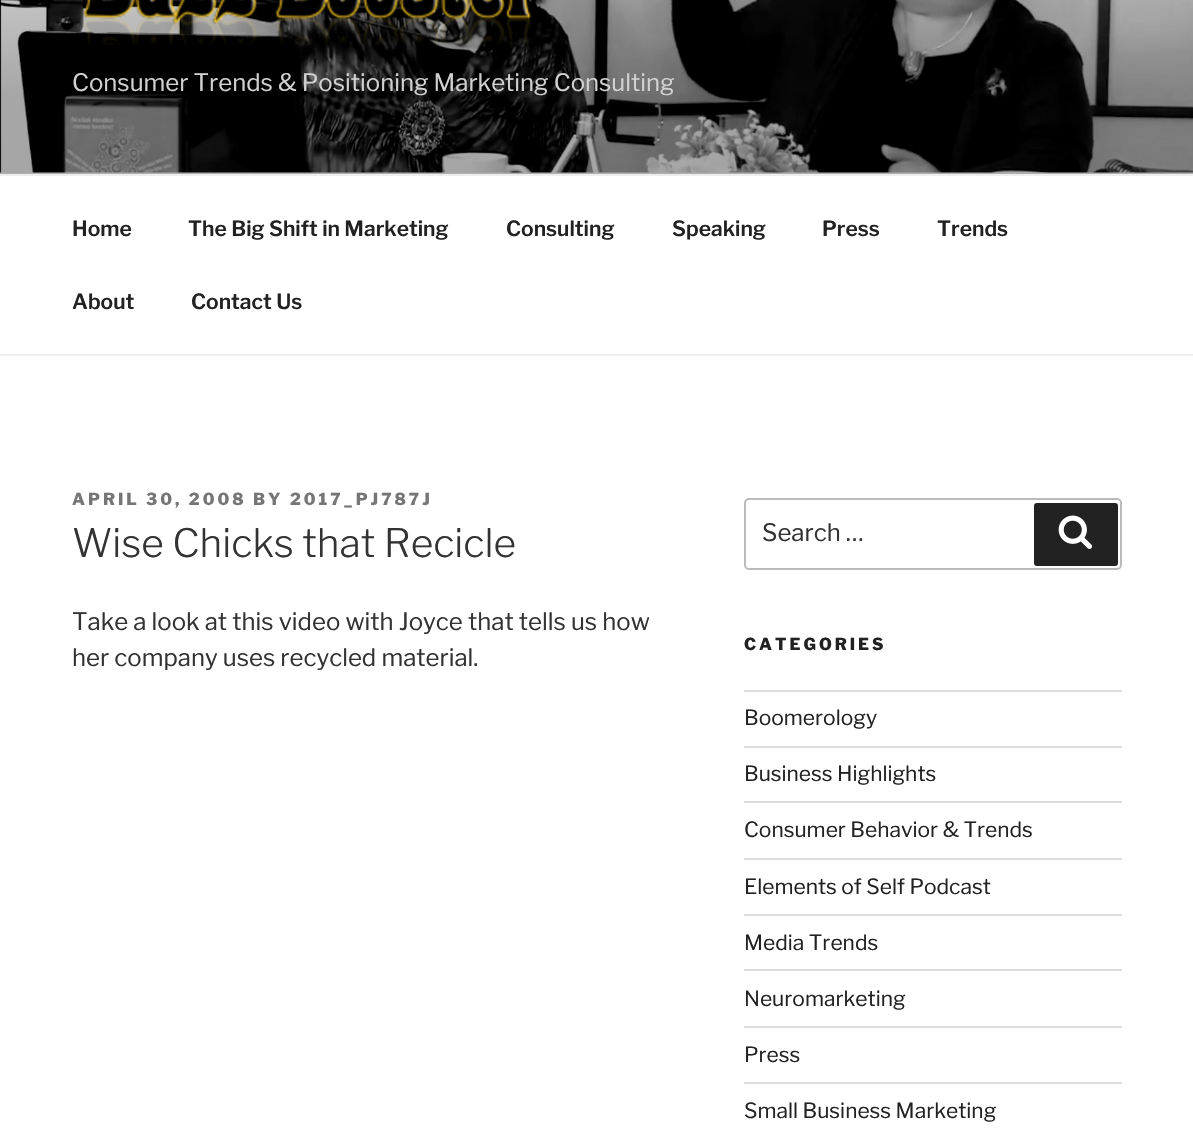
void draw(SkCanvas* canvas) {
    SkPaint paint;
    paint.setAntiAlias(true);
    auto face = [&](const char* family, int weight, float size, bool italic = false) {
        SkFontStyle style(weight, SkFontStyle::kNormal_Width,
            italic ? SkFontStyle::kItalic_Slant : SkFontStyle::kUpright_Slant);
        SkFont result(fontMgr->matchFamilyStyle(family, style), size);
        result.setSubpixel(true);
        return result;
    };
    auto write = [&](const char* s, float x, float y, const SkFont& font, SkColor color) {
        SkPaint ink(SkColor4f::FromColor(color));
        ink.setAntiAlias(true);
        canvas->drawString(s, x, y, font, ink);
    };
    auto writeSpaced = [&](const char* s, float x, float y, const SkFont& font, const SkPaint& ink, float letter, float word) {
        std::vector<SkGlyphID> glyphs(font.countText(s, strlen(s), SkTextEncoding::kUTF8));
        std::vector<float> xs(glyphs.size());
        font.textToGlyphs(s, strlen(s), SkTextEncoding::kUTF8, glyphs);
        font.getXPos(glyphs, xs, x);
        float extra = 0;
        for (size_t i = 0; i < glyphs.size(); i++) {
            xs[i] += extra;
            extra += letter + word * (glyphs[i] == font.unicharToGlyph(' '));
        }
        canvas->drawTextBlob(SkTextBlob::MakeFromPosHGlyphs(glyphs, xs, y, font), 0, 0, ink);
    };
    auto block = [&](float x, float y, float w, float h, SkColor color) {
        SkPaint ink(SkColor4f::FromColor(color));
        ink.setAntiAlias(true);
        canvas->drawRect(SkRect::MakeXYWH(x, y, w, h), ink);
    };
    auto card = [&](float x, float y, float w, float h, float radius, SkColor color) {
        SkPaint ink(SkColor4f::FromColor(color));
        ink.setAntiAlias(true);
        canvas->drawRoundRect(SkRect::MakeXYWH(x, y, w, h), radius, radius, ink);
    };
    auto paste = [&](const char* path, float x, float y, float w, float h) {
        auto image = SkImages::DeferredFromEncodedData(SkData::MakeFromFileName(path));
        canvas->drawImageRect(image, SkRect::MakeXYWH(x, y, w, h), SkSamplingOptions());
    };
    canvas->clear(SK_ColorWHITE);
    block(0, 172, 1193, 2, SkColorSetRGB(250, 250, 250));
    paste("pic1.png", 0, 0, 1193, 173);
    {
        const SkColor colors[] = {SkColorSetARGB(0, 0, 0, 0), SkColorSetARGB(77, 0, 0, 0), SkColorSetARGB(77, 0, 0, 0)};
        const float stops[] = {0, 0.75f, 1};
        const SkPoint ends[] = {{597, -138}, {597, 174}};
        paint.setShader(SkGradientShader::MakeLinear(ends, colors, stops, 3, SkTileMode::kClamp));
        paint.setAlpha(255);
    }
    canvas->drawRect(SkRect::MakeXYWH(0, 0, 1193, 174), paint);
    paste("pic2.png", 83, 0, 449, 45);
    auto kFont1 = face("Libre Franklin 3", 100, 24);
    write("Consumer Trends & Positioning Marketing Consulting", 72, 91, kFont1, SkColorSetRGB(209, 209, 209));
    block(0, 174, 1193, 2, SkColorSetRGB(238, 238, 238));
    block(0, 354, 1193, 2, SkColorSetRGB(238, 238, 238));
    auto kFont2 = face("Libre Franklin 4", 100, 21);
    write("Home", 72, 236, kFont2, SkColorSetRGB(34, 34, 34));
    write("The Big Shift in Marketing", 188, 236, kFont2, SkColorSetRGB(34, 34, 34));
    write("Consulting", 506, 236, kFont2, SkColorSetRGB(34, 34, 34));
    write("Speaking", 672, 236, kFont2, SkColorSetRGB(34, 34, 34));
    write("Press", 822, 236, kFont2, SkColorSetRGB(34, 34, 34));
    write("Trends", 937, 236, kFont2, SkColorSetRGB(34, 34, 34));
    write("About", 72, 309, kFont2, SkColorSetRGB(34, 34, 34));
    write("Contact Us", 191, 309, kFont2, SkColorSetRGB(34, 34, 34));
    auto kFont3 = face("Libre Franklin", 100, 16.5f);
    paint.setShader(nullptr);
    paint.setColor(SkColorSetRGB(118, 118, 118));
    writeSpaced("APRIL 30, 2008 BY 2017_PJ787J", 72, 505, kFont3, paint, 3, 0);
    auto kFont4 = face("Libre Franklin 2", 100, 39);
    write("Wise Chicks that Recicle", 72, 557, kFont4, SkColorSetRGB(51, 51, 51));
    write("Take a look at this video with Joyce that tells us how", 72, 630, kFont1, SkColorSetRGB(51, 51, 51));
    write("her company uses recycled material.", 72, 666, kFont1, SkColorSetRGB(51, 51, 51));
    paint.setStyle(SkPaint::kStroke_Style);
    paint.setStrokeWidth(2);
    paint.setColor(SkColorSetRGB(187, 187, 187));
    canvas->drawRoundRect(SkRect::MakeXYWH(745, 499, 376, 70), 4, 4, paint);
    write("Search …", 762, 541, kFont1, SkColorSetRGB(51, 51, 51));
    card(1034, 503, 84, 63, 3, SkColorSetRGB(34, 34, 34));
    paste("pic3.png", 1058, 515, 34, 34);
    paint.setStyle(SkPaint::kFill_Style);
    paint.setColor(SkColorSetRGB(34, 34, 34));
    writeSpaced("CATEGORIES", 744, 650, kFont3, paint, 3, 0);
    block(744, 690, 378, 2, SkColorSetRGB(221, 221, 221));
    block(744, 746, 378, 2, SkColorSetRGB(221, 221, 221));
    auto kFont5 = face("Libre Franklin 3", 100, 21);
    write("Boomerology", 744, 725, kFont5, SkColorSetRGB(34, 34, 34));
    block(744, 801, 378, 2, SkColorSetRGB(221, 221, 221));
    write("Business Highlights", 744, 781, kFont5, SkColorSetRGB(34, 34, 34));
    block(744, 858, 378, 2, SkColorSetRGB(221, 221, 221));
    write("Consumer Behavior & Trends", 744, 837, kFont5, SkColorSetRGB(34, 34, 34));
    block(744, 914, 378, 2, SkColorSetRGB(221, 221, 221));
    write("Elements of Self Podcast", 744, 894, kFont5, SkColorSetRGB(34, 34, 34));
    block(744, 969, 378, 2, SkColorSetRGB(221, 221, 221));
    write("Media Trends", 744, 950, kFont5, SkColorSetRGB(34, 34, 34));
    block(744, 1026, 378, 2, SkColorSetRGB(221, 221, 221));
    write("Neuromarketing", 744, 1006, kFont5, SkColorSetRGB(34, 34, 34));
    block(744, 1082, 378, 2, SkColorSetRGB(221, 221, 221));
    write("Press", 744, 1062, kFont5, SkColorSetRGB(34, 34, 34));
    write("Small Business Marketing", 744, 1118, kFont5, SkColorSetRGB(34, 34, 34));
}
